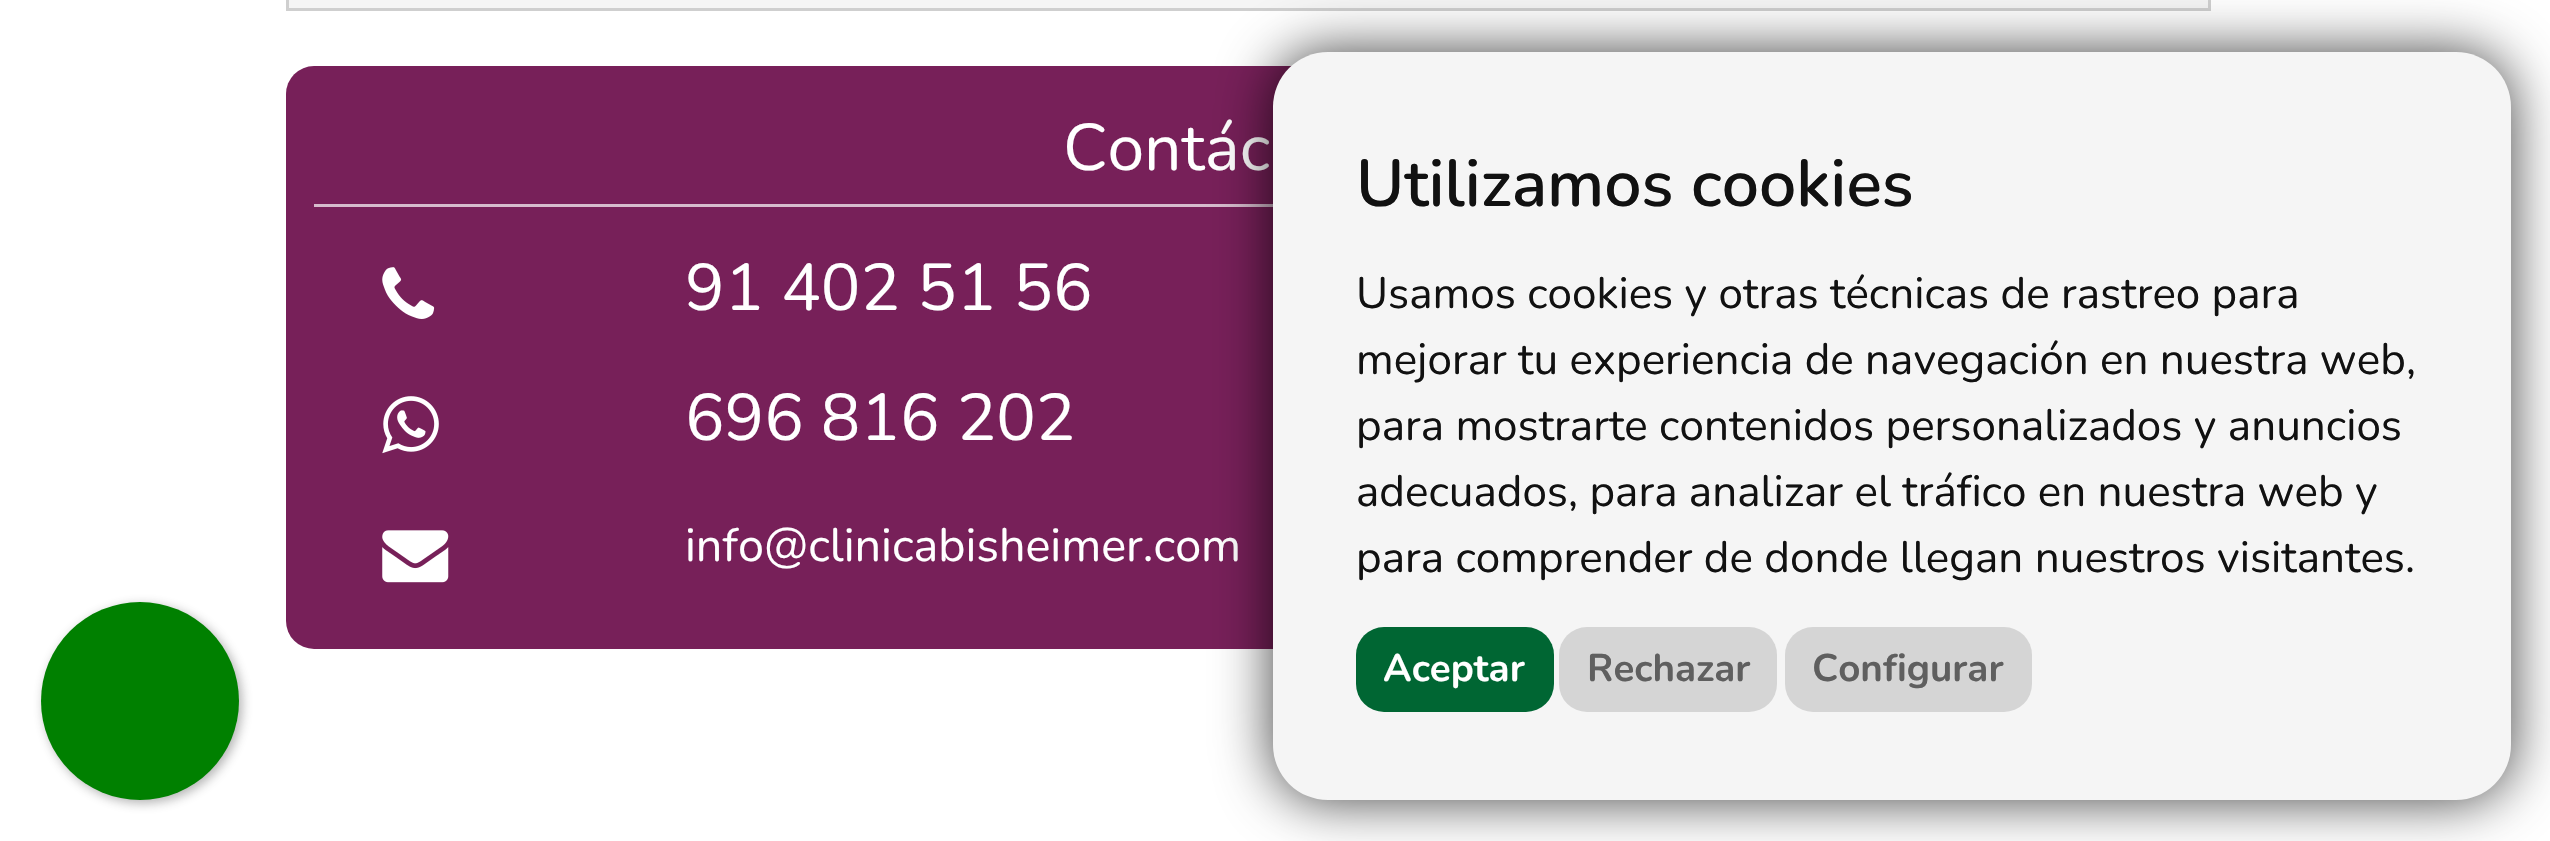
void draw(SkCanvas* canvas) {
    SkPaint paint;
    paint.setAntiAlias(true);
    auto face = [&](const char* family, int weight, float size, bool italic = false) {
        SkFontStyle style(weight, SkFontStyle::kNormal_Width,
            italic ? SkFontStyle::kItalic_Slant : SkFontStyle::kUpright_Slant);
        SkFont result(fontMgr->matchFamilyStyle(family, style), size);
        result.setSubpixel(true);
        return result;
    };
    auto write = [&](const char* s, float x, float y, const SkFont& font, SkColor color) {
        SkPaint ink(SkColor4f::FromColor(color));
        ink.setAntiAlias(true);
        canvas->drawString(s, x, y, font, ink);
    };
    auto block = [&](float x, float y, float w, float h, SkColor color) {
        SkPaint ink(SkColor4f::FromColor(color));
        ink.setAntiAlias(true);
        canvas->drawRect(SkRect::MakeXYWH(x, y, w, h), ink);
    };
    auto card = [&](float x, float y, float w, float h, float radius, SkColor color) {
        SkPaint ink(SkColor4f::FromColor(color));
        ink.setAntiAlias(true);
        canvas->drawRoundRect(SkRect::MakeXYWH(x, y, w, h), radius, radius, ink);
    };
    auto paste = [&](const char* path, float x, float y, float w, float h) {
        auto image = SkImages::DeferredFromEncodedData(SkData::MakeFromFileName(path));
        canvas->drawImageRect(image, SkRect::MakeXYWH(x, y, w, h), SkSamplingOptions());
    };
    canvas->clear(SK_ColorWHITE);
    paint.setStyle(SkPaint::kStroke_Style);
    paint.setStrokeWidth(3);
    paint.setColor(SkColorSetRGB(207, 207, 207));
    canvas->drawRect(SkRect::MakeXYWH(287.5f, -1.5f, 1922, 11), paint);
    block(289, 0, 1919, 8, SkColorSetRGB(245, 245, 245));
    card(286, 66, 1925, 583, 28, SkColorSetRGB(119, 32, 89));
    block(314, 204, 959, 3, SkColorSetRGB(214, 188, 205));
    auto kFont1 = face("Nunito", 400, 66);
    write("Contác", 1063, 170, kFont1, SK_ColorWHITE);
    paste("pic1.png", 382, 267, 53, 52);
    write("91 402 51 56", 685, 310, kFont1, SK_ColorWHITE);
    paste("pic2.png", 382, 396, 57, 58);
    write("696 816 202", 685, 440, kFont1, SK_ColorWHITE);
    paste("pic3.png", 382, 530, 67, 53);
    auto kFont2 = face("Nunito", 400, 46.75f);
    write("info@clinicabisheimer.com", 685, 561, kFont2, SK_ColorWHITE);
    paint.setStyle(SkPaint::kFill_Style);
    paint.setColor(SkColorSetARGB(102, 60, 60, 60));
    paint.setMaskFilter(SkMaskFilter::MakeBlur(kNormal_SkBlurStyle, 5.5f));
    canvas->drawRoundRect(SkRect::MakeXYWH(44, 605, 198, 198), 99, 99, paint);
    paint.setMaskFilter(nullptr);
    paint.setColor(SkColorSetRGB(0, 128, 0));
    canvas->drawCircle(140, 701, 99, paint);
    paint.setColor(SkColorSetARGB(191, 0, 0, 0));
    paint.setMaskFilter(SkMaskFilter::MakeBlur(kNormal_SkBlurStyle, 27.5f));
    canvas->drawRoundRect(SkRect::MakeXYWH(1273, 52, 1238, 748), 55, 55, paint);
    paint.setMaskFilter(nullptr);
    card(1273, 52, 1238, 748, 55, SkColorSetRGB(245, 245, 245));
    auto kFont3 = face("Nunito", 600, 66);
    write("Utilizamos cookies", 1356, 206, kFont3, SkColorSetRGB(17, 17, 17));
    auto kFont4 = face("Nunito", 400, 44);
    write("Usamos cookies y otras técnicas de rastreo para", 1356, 308, kFont4, SkColorSetRGB(17, 17, 17));
    write("mejorar tu experiencia de navegación en nuestra web,", 1356, 374, kFont4, SkColorSetRGB(17, 17, 17));
    write("para mostrarte contenidos personalizados y anuncios", 1356, 440, kFont4, SkColorSetRGB(17, 17, 17));
    write("adecuados, para analizar el tráfico en nuestra web y", 1356, 506, kFont4, SkColorSetRGB(17, 17, 17));
    write("para comprender de donde llegan nuestros visitantes.", 1356, 572, kFont4, SkColorSetRGB(17, 17, 17));
    card(1356, 627, 198, 85, 28, SkColorSetRGB(0, 102, 51));
    auto kFont5 = face("Nunito", 700, 38.5f);
    write("Aceptar", 1383, 681, kFont5, SK_ColorWHITE);
    card(1559, 627, 218, 85, 28, SkColorSetRGB(213, 213, 213));
    write("Rechazar", 1587, 681, kFont5, SkColorSetRGB(95, 95, 95));
    card(1785, 627, 247, 85, 28, SkColorSetRGB(213, 213, 213));
    write("Configurar", 1812, 681, kFont5, SkColorSetRGB(95, 95, 95));
}
